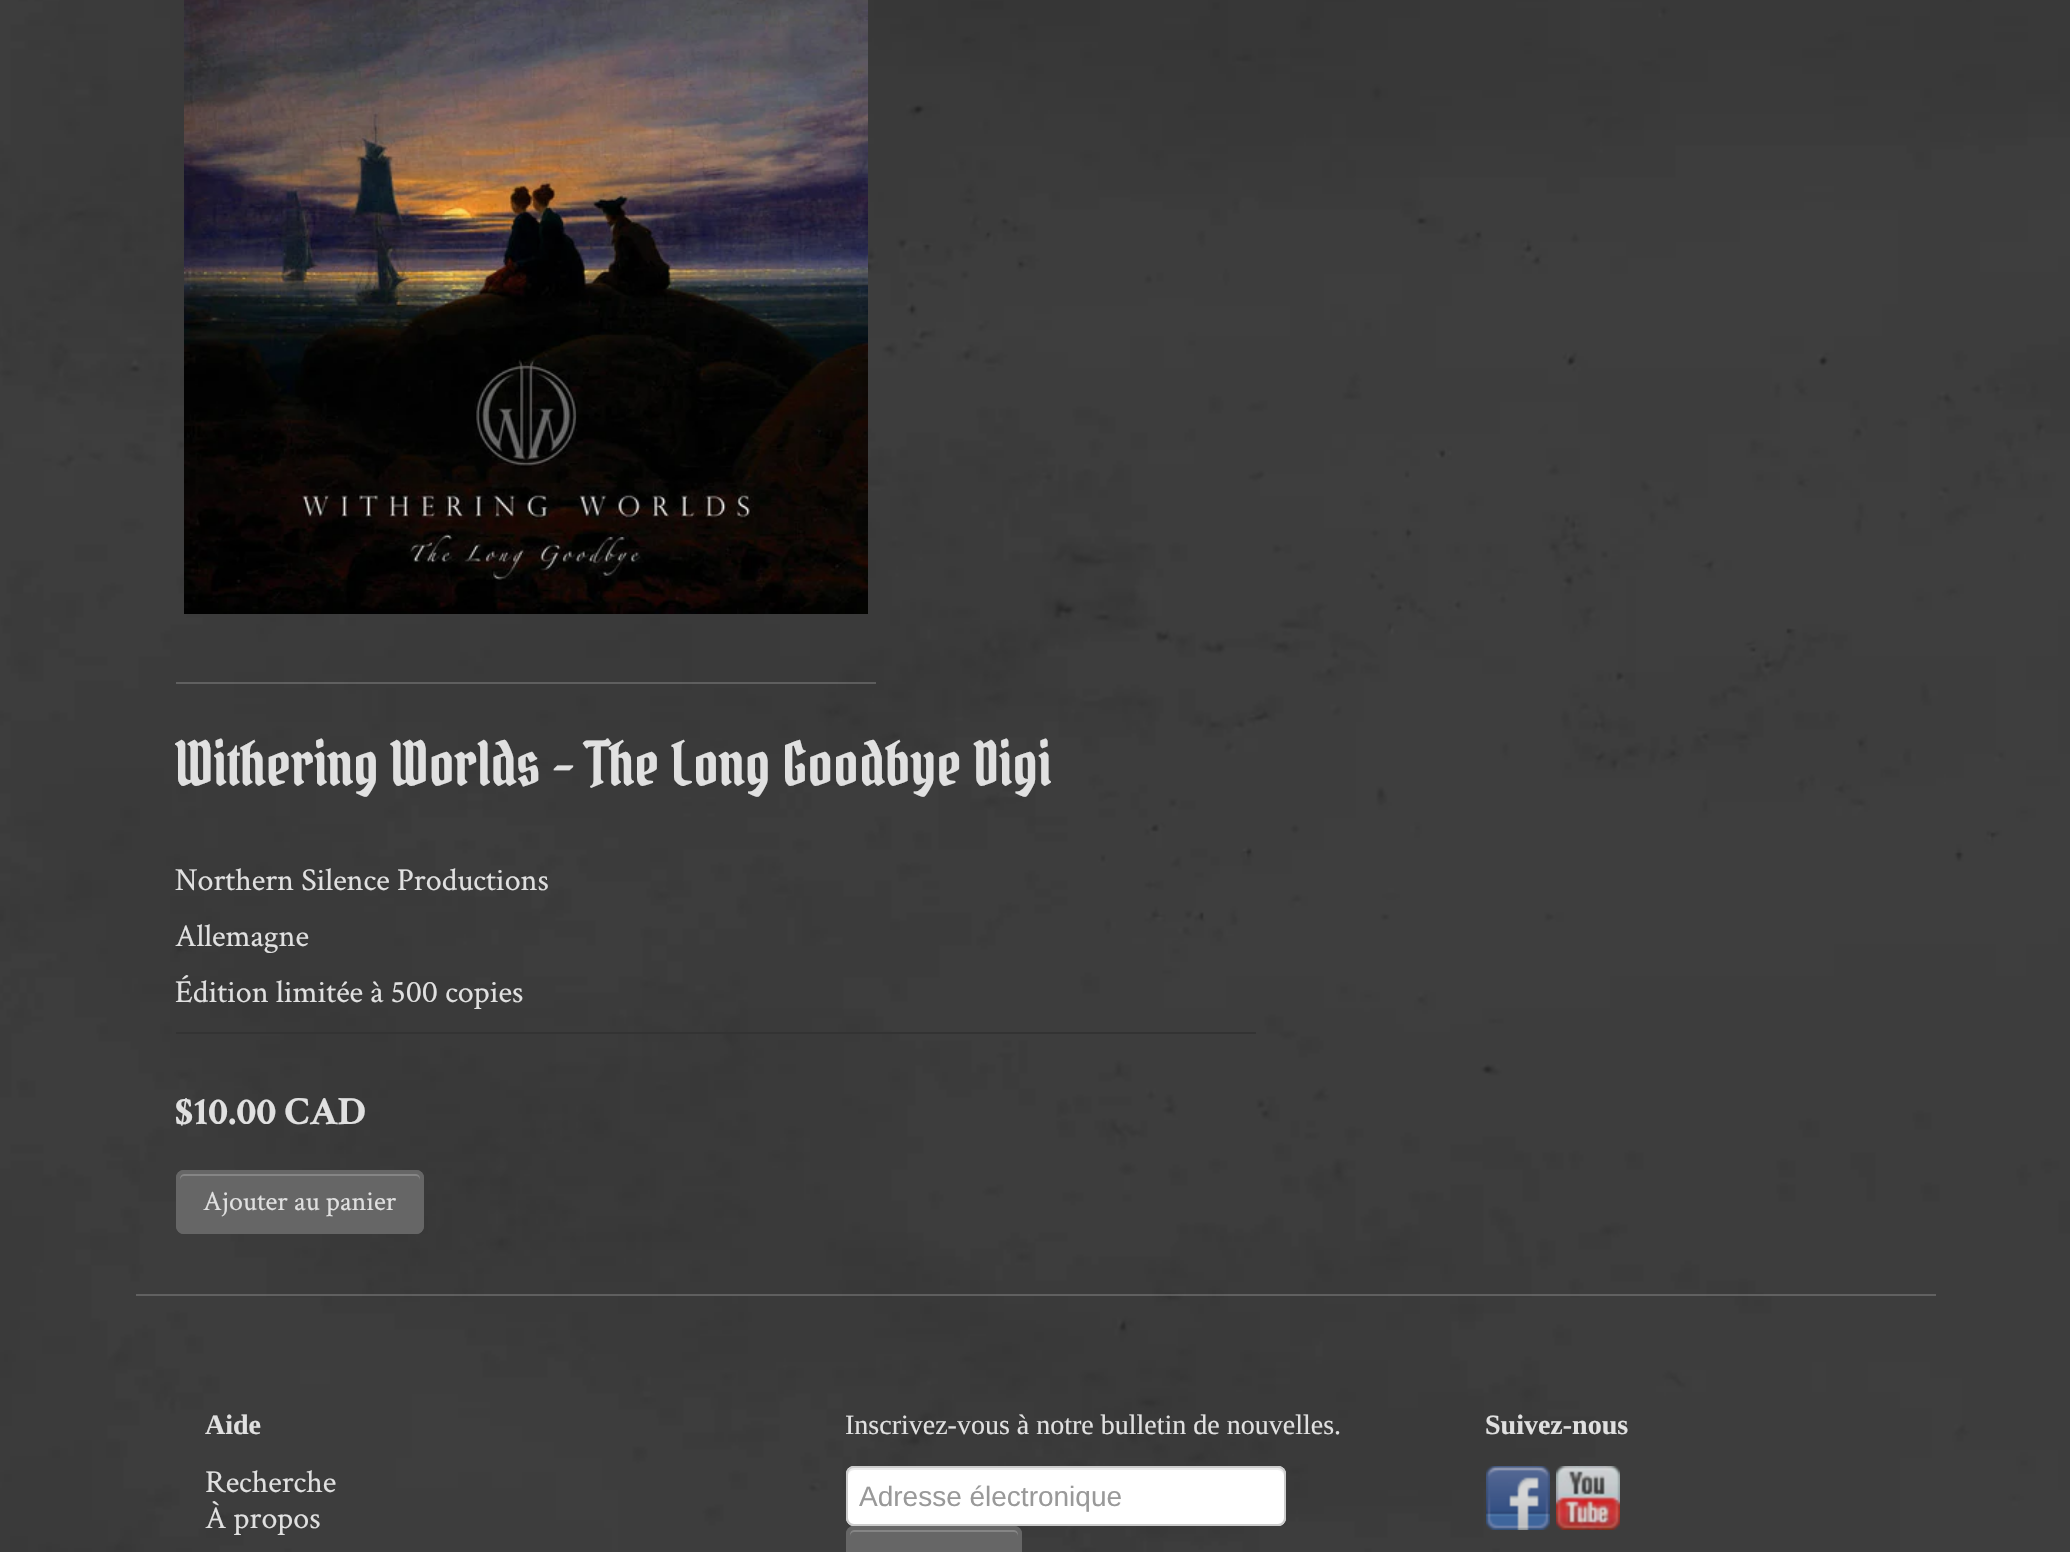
void draw(SkCanvas* canvas) {
    SkPaint paint;
    paint.setAntiAlias(true);
    auto face = [&](const char* family, int weight, float size, bool italic = false) {
        SkFontStyle style(weight, SkFontStyle::kNormal_Width,
            italic ? SkFontStyle::kItalic_Slant : SkFontStyle::kUpright_Slant);
        SkFont result(fontMgr->matchFamilyStyle(family, style), size);
        result.setSubpixel(true);
        return result;
    };
    auto write = [&](const char* s, float x, float y, const SkFont& font, SkColor color) {
        SkPaint ink(SkColor4f::FromColor(color));
        ink.setAntiAlias(true);
        canvas->drawString(s, x, y, font, ink);
    };
    auto block = [&](float x, float y, float w, float h, SkColor color) {
        SkPaint ink(SkColor4f::FromColor(color));
        ink.setAntiAlias(true);
        canvas->drawRect(SkRect::MakeXYWH(x, y, w, h), ink);
    };
    auto card = [&](float x, float y, float w, float h, float radius, SkColor color) {
        SkPaint ink(SkColor4f::FromColor(color));
        ink.setAntiAlias(true);
        canvas->drawRoundRect(SkRect::MakeXYWH(x, y, w, h), radius, radius, ink);
    };
    auto paste = [&](const char* path, float x, float y, float w, float h) {
        auto image = SkImages::DeferredFromEncodedData(SkData::MakeFromFileName(path));
        canvas->drawImageRect(image, SkRect::MakeXYWH(x, y, w, h), SkSamplingOptions());
    };
    canvas->clear(SK_ColorWHITE);
    paste("pic1.png", 0, 0, 2070, 1552);
    paste("pic2.png", 184, 0, 684, 614);
    block(176, 682, 700, 2, SkColorSetARGB(51, 238, 238, 238));
    auto kFont1 = face("Pirata One", 400, 60);
    write("Withering Worlds - The Long Goodbye Digi", 175, 786, kFont1, SkColorSetRGB(224, 224, 224));
    block(176, 1032, 1080, 2, SkColorSetRGB(51, 51, 51));
    auto kFont2 = face("Crimson Text", 400, 32);
    write("Northern Silence Productions", 175, 890, kFont2, SkColorSetRGB(224, 224, 224));
    write("Allemagne", 175, 946, kFont2, SkColorSetRGB(224, 224, 224));
    write("Édition limitée à 500 copies", 175, 1002, kFont2, SkColorSetRGB(224, 224, 224));
    auto kFont3 = face("Crimson Text", 700, 40);
    write("$10.00 CAD", 175, 1124, kFont3, SkColorSetRGB(224, 224, 224));
    card(176, 1170, 248, 64, 8, SkColorSetRGB(102, 102, 102));
    paint.setColor(SkColorSetRGB(133, 133, 133));
    canvas->drawPath(SkPathBuilder().moveTo(184, 1176).lineTo(416, 1176).cubicTo(418, 1176, 420, 1178, 420, 1180).lineTo(420, 1178).cubicTo(420, 1176, 418, 1174, 416, 1174).lineTo(184, 1174).cubicTo(182, 1174, 180, 1176, 180, 1178).lineTo(180, 1180).cubicTo(180, 1178, 182, 1176, 184, 1176).close().detach(), paint);
    paint.setStyle(SkPaint::kStroke_Style);
    paint.setStrokeWidth(4);
    paint.setColor(SkColorSetRGB(102, 102, 102));
    canvas->drawRoundRect(SkRect::MakeXYWH(178, 1172, 244, 60), 6, 6, paint);
    auto kFont4 = face("Crimson Text", 400, 28);
    write("Ajouter au panier", 203, 1210, kFont4, SkColorSetRGB(224, 224, 224));
    block(136, 1294, 1800, 2, SkColorSetARGB(51, 238, 238, 238));
    auto kFont5 = face("Liberation Serif", 700, 28);
    write("Aide", 205, 1434, kFont5, SkColorSetRGB(224, 224, 224));
    write("Recherche", 205, 1492, kFont2, SkColorSetRGB(224, 224, 224));
    write("À propos", 205, 1528, kFont2, SkColorSetRGB(224, 224, 224));
    auto kFont6 = face("Liberation Serif", 400, 28);
    write("Inscrivez-vous à notre bulletin de nouvelles.", 845, 1434, kFont6, SkColorSetRGB(224, 224, 224));
    card(846, 1466, 440, 60, 8, SK_ColorWHITE);
    paint.setStyle(SkPaint::kFill_Style);
    paint.setColor(SkColorSetRGB(236, 236, 236));
    canvas->drawPath(SkPathBuilder().moveTo(854, 1470).lineTo(1278, 1470).cubicTo(1281, 1470, 1284, 1473, 1284, 1476).lineTo(1284, 1474).cubicTo(1284, 1471, 1281, 1468, 1278, 1468).lineTo(854, 1468).cubicTo(851, 1468, 848, 1471, 848, 1474).lineTo(848, 1476).cubicTo(848, 1473, 851, 1470, 854, 1470).close().detach(), paint);
    paint.setStyle(SkPaint::kStroke_Style);
    paint.setStrokeWidth(2);
    paint.setColor(SkColorSetRGB(204, 204, 204));
    canvas->drawRoundRect(SkRect::MakeXYWH(847, 1467, 438, 58), 7, 7, paint);
    auto kFont7 = face("Liberation Sans", 400, 28);
    write("Adresse électronique", 859, 1506, kFont7, SkColorSetRGB(153, 153, 153));
    card(846, 1526, 176, 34, 8, SkColorSetRGB(102, 102, 102));
    paint.setStyle(SkPaint::kFill_Style);
    paint.setColor(SkColorSetRGB(133, 133, 133));
    canvas->drawPath(SkPathBuilder().moveTo(854, 1532).lineTo(1014, 1532).cubicTo(1016, 1532, 1018, 1534, 1018, 1536).lineTo(1018, 1534).cubicTo(1018, 1532, 1016, 1530, 1014, 1530).lineTo(854, 1530).cubicTo(852, 1530, 850, 1532, 850, 1534).lineTo(850, 1536).cubicTo(850, 1534, 852, 1532, 854, 1532).close().detach(), paint);
    paint.setStyle(SkPaint::kStroke_Style);
    paint.setStrokeWidth(4);
    paint.setColor(SkColorSetRGB(102, 102, 102));
    canvas->drawRoundRect(SkRect::MakeXYWH(848, 1528, 172, 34), 6, 6, paint);
    write("Suivez-nous", 1485, 1434, kFont5, SkColorSetRGB(224, 224, 224));
    paste("pic3.png", 1486, 1466, 64, 64);
    paste("pic4.png", 1556, 1466, 64, 64);
}
